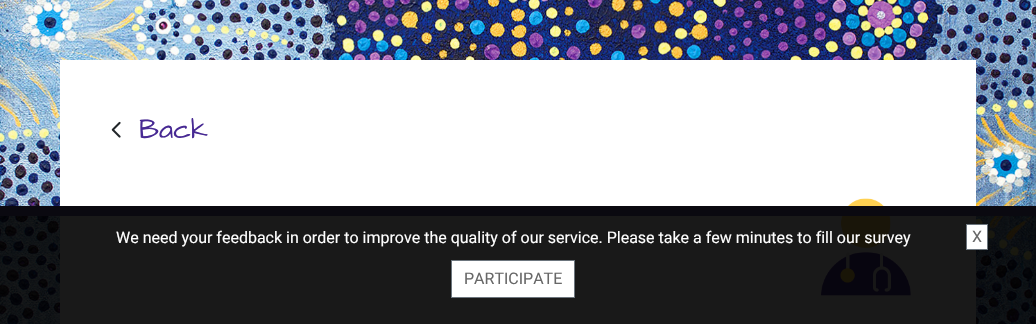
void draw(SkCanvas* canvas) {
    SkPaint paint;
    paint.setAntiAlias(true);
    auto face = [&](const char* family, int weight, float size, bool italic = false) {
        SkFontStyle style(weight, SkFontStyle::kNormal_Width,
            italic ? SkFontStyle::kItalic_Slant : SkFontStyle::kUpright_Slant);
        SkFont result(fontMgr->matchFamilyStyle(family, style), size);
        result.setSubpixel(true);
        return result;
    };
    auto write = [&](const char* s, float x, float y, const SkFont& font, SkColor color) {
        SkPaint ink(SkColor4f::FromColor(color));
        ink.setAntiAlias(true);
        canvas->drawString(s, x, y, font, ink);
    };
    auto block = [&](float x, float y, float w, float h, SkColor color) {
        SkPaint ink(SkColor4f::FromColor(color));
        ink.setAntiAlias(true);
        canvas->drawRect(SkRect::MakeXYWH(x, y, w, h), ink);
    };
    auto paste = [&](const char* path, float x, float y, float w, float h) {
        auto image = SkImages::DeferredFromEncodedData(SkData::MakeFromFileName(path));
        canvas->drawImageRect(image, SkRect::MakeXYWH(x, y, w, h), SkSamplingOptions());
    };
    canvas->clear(SK_ColorWHITE);
    paste("pic1.png", 0, 0, 1036, 324);
    block(60, 60, 916, 264, SK_ColorWHITE);
    paste("pic2.png", 111, 121, 10, 17);
    auto kFont1 = face("Architects Daughter", 400, 28);
    write("Back", 139, 138, kFont1, SkColorSetRGB(71, 41, 147));
    paste("pic3.png", 821, 198, 90, 98);
    block(0, 216, 1036, 108, SkColorSetARGB(230, 0, 0, 0));
    block(0, 206, 1036, 10, SkColorSetRGB(10, 9, 16));
    auto kFont2 = face("Roboto", 400, 16);
    write("We need your feedback in order to improve the quality of our service. Please take a few minutes to fill our survey", 116, 243, kFont2, SK_ColorWHITE);
    paint.setColor(SK_ColorWHITE);
    canvas->drawRect(SkRect::MakeXYWH(451.5f, 260.5f, 123, 37), paint);
    paint.setStyle(SkPaint::kStroke_Style);
    paint.setStrokeWidth(1);
    paint.setColor(SkColorSetRGB(108, 117, 125));
    canvas->drawRect(SkRect::MakeXYWH(451.5f, 260.5f, 123, 37), paint);
    write("PARTICIPATE", 464, 284, kFont2, SkColorSetRGB(104, 104, 104));
    paint.setStyle(SkPaint::kFill_Style);
    paint.setColor(SK_ColorWHITE);
    canvas->drawRect(SkRect::MakeXYWH(966.5f, 224.5f, 21, 25), paint);
    paint.setStyle(SkPaint::kStroke_Style);
    paint.setColor(SkColorSetRGB(108, 117, 125));
    canvas->drawRect(SkRect::MakeXYWH(966.5f, 224.5f, 21, 25), paint);
    write("X", 972, 242, kFont2, SkColorSetRGB(104, 104, 104));
}
